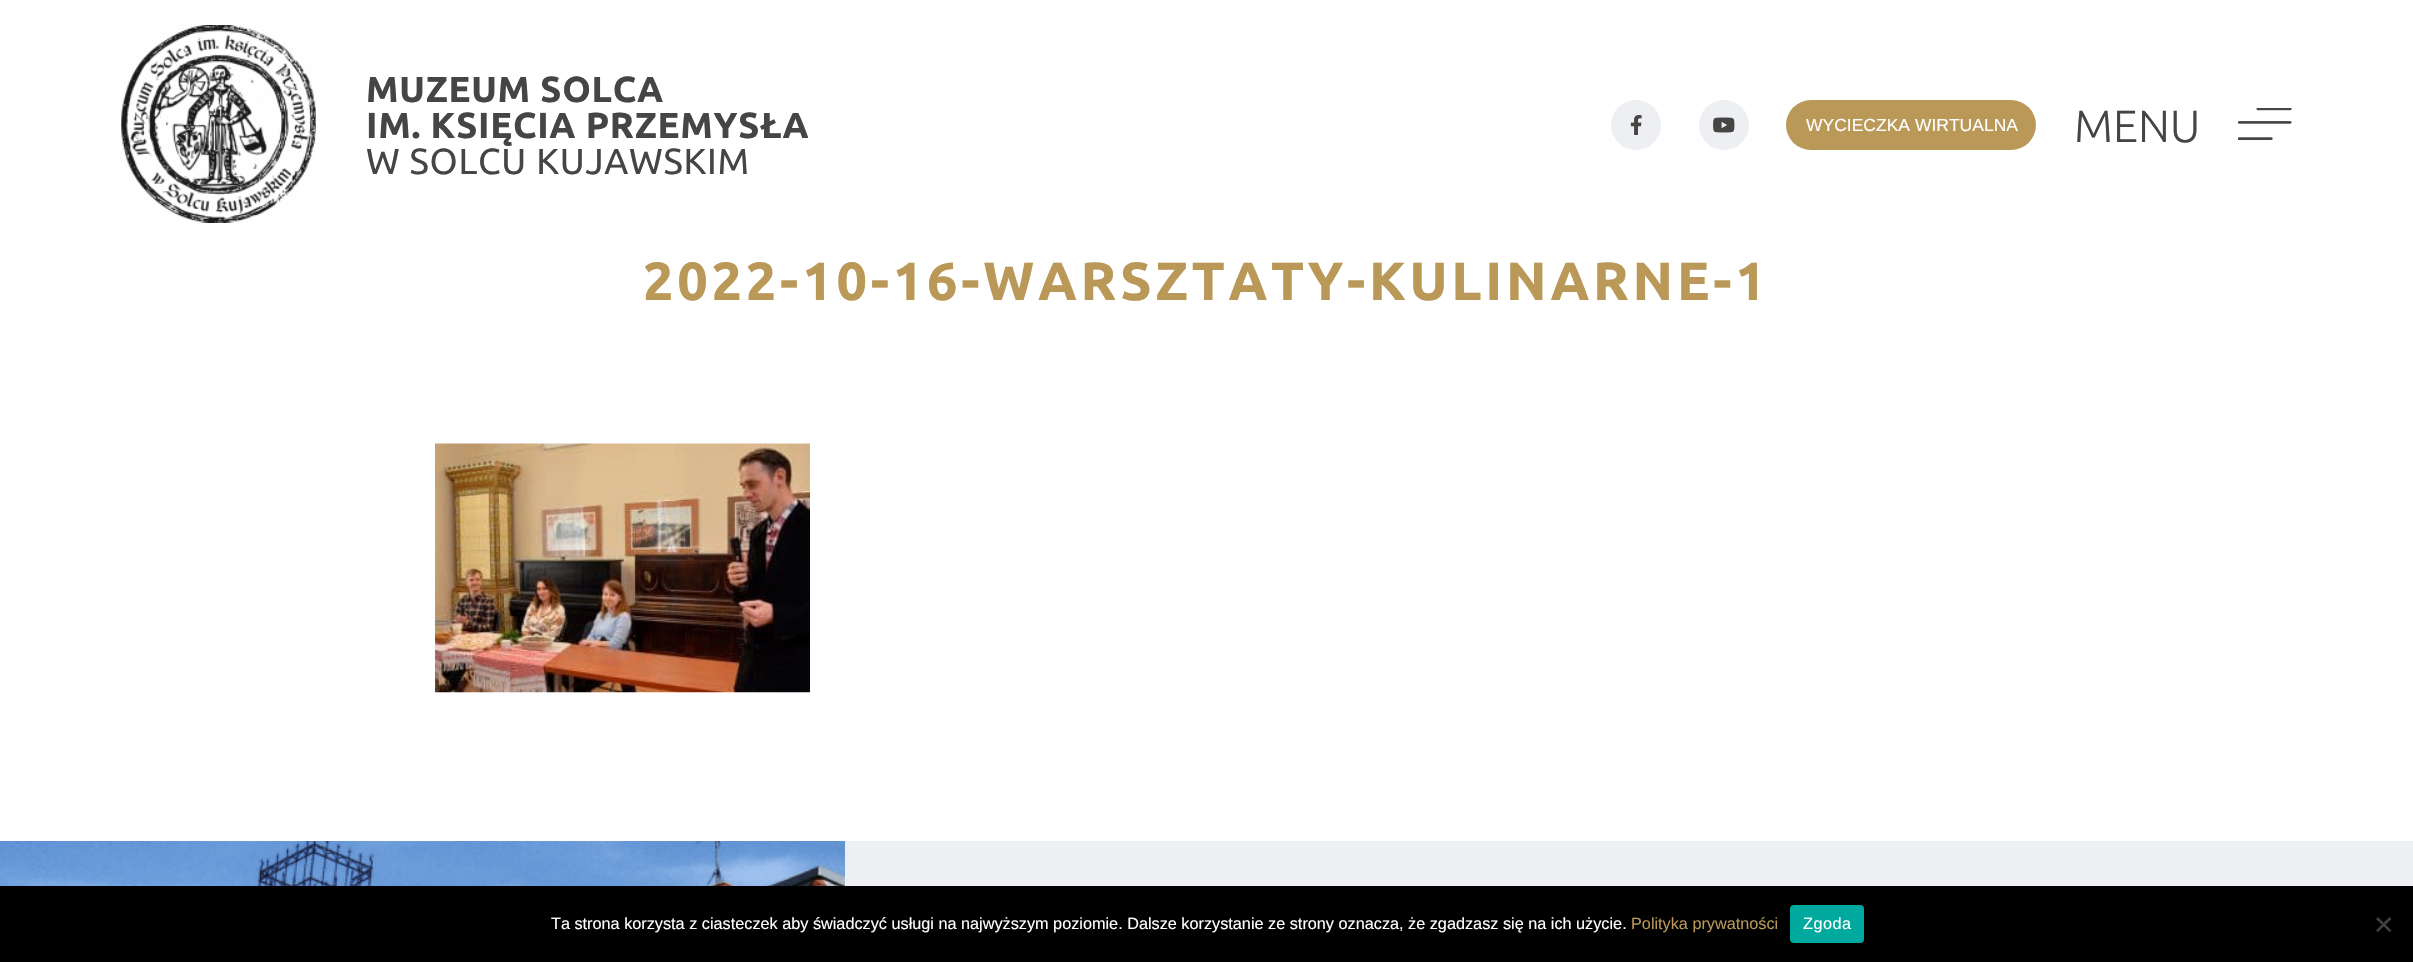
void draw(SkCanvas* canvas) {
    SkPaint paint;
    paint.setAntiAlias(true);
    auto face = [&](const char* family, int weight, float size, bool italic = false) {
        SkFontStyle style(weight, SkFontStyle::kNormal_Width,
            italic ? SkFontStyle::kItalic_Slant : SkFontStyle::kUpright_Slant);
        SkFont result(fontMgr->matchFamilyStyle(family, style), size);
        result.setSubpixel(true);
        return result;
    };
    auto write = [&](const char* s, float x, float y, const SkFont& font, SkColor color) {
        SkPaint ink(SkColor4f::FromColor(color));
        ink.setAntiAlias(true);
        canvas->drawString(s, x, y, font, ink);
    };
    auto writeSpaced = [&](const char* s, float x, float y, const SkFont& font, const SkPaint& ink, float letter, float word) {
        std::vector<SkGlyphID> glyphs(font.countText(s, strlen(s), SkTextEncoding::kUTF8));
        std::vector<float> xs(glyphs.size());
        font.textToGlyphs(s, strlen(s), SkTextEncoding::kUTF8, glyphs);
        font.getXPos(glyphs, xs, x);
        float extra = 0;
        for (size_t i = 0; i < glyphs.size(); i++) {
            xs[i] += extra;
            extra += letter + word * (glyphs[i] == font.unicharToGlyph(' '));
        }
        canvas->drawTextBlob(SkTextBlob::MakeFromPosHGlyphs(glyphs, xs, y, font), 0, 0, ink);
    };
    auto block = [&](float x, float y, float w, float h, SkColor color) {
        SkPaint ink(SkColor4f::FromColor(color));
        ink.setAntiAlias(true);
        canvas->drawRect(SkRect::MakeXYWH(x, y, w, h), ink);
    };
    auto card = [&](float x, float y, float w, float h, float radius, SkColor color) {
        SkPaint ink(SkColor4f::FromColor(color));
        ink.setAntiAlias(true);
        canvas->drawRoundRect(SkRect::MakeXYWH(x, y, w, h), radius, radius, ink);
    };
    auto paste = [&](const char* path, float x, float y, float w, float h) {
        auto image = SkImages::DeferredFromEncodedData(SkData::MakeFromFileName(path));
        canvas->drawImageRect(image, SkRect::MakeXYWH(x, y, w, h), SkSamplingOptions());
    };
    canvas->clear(SK_ColorWHITE);
    paste("pic1.png", 121, 25, 195, 198);
    auto kFont1 = face("Ubuntu", 700, 36.25f);
    paint.setColor(SkColorSetRGB(69, 69, 68));
    writeSpaced("MUZEUM SOLCA", 366, 102, kFont1, paint, 0.75f, 0);
    writeSpaced("IM. KSIĘCIA PRZEMYSŁA", 366, 138, kFont1, paint, 0.75f, 0);
    auto kFont2 = face("Ubuntu", 400, 36.25f);
    writeSpaced("W SOLCU KUJAWSKIM", 366, 174, kFont2, paint, 0.75f, 0);
    paint.setColor(SkColorSetRGB(238, 239, 242));
    canvas->drawCircle(1636, 125, 25, paint);
    paste("pic2.png", 1630, 115, 12, 20);
    canvas->drawCircle(1724, 125, 25, paint);
    paste("pic3.png", 1713, 117, 22, 16);
    card(1786, 100, 250, 50, 25, SkColorSetRGB(186, 152, 87));
    auto kFont3 = face("Liberation Sans", 400, 17.5f);
    write("WYCIECZKA WIRTUALNA", 1806, 131, kFont3, SK_ColorWHITE);
    auto kFont4 = face("Ubuntu", 300, 45);
    write("MENU", 2074, 142, kFont4, SkColorSetRGB(69, 69, 68));
    paste("pic4.png", 2238, 108, 54, 32);
    auto kFont5 = face("Ubuntu", 700, 53.75f);
    paint.setColor(SkColorSetRGB(186, 152, 87));
    writeSpaced("2022-10-16-WARSZTATY-KULINARNE-1", 643, 300, kFont5, paint, 3.75f, 0);
    paste("pic5.png", 435, 443, 375, 250);
    paste("pic6.png", 0, 841, 845, 45);
    block(845, 841, 1568, 45, SkColorSetRGB(238, 239, 242));
    block(0, 886, 2413, 76, SK_ColorBLACK);
    auto kFont6 = face("Liberation Sans", 400, 16.25f);
    write("Ta strona korzysta z ciasteczek aby świadczyć usługi na najwyższym poziomie. Dalsze korzystanie ze strony oznacza, że zgadzasz się na ich użycie.", 551, 929, kFont6, SK_ColorWHITE);
    write("Polityka prywatności", 1631, 929, kFont6, SkColorSetRGB(186, 152, 87));
    card(1790, 905, 74, 38, 4, SkColorSetRGB(0, 169, 157));
    paint.setColor(SK_ColorWHITE);
    writeSpaced("Zgoda", 1803, 929, kFont6, paint, 0.5f, 0);
    paint.setColor(SkColorSetRGB(64, 64, 64));
    canvas->drawPath(SkPathBuilder().moveTo(2389.5f, 917).lineTo(2391.5f, 919).lineTo(2378, 932).lineTo(2376, 930.5f).close().detach(), paint);
    canvas->drawPath(SkPathBuilder().moveTo(2376, 919).lineTo(2378, 917).lineTo(2391.5f, 930.5f).lineTo(2389.5f, 932).close().detach(), paint);
}
